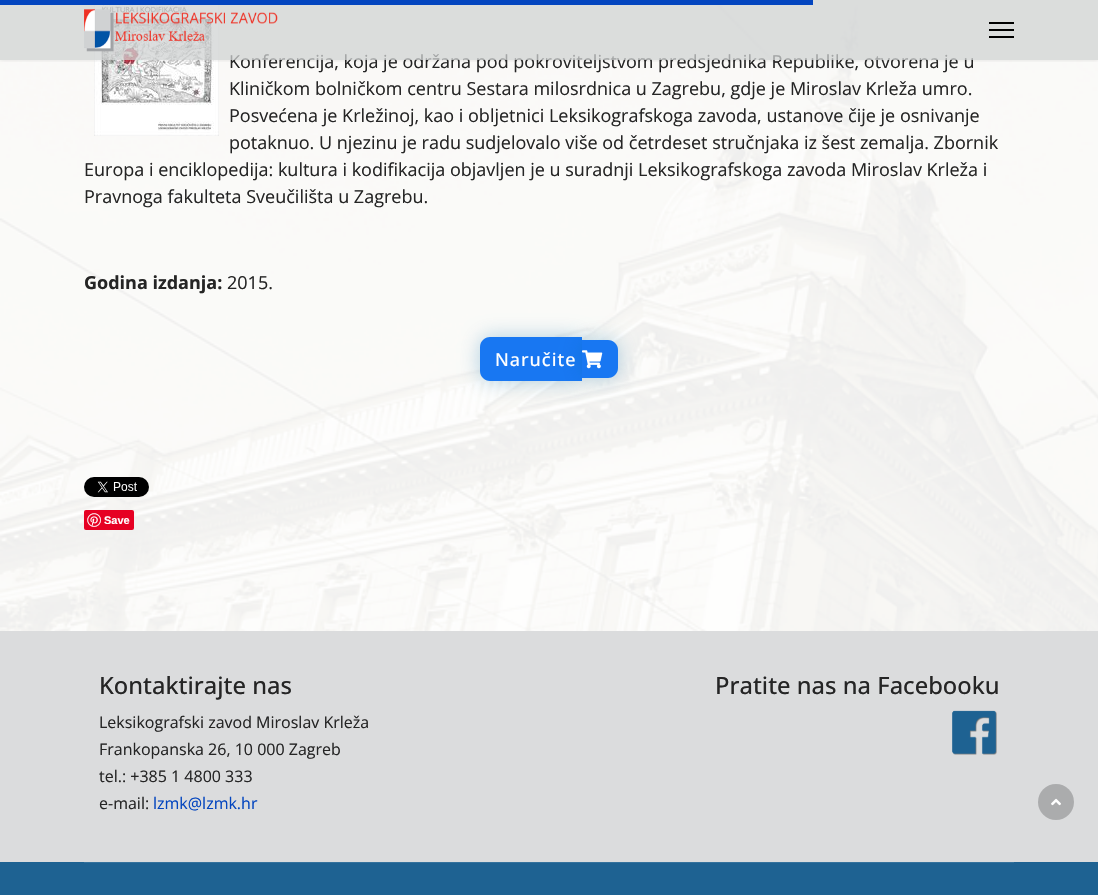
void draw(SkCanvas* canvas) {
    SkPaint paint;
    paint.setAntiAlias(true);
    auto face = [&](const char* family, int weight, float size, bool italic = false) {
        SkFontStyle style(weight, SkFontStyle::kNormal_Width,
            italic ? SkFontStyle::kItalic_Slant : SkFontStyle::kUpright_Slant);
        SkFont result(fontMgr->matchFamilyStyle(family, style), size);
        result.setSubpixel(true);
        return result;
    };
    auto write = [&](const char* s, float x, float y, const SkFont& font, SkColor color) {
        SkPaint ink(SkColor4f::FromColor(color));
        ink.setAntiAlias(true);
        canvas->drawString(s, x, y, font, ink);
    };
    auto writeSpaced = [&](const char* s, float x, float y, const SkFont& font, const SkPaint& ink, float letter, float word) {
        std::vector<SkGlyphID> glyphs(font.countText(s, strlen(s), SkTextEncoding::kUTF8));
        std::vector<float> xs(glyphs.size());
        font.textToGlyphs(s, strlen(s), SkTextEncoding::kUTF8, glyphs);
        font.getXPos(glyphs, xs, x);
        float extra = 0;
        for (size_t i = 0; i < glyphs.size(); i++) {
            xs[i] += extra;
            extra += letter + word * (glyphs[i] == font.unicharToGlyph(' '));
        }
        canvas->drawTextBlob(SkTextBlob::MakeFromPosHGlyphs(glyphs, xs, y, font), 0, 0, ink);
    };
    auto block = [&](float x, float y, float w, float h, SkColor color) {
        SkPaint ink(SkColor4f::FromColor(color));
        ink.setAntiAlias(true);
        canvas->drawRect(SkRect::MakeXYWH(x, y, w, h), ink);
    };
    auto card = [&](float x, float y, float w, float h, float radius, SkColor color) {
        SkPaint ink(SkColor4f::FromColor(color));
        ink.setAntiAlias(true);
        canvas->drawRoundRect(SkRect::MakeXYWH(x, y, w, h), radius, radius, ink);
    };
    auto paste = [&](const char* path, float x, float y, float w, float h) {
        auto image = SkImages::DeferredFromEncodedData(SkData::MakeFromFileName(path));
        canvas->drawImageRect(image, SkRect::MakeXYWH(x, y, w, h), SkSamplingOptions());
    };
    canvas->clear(SK_ColorWHITE);
    paste("pic1.png", 0, 0, 1098, 631);
    paste("pic3.png", 94, 5, 125, 131);
    canvas->save();
    canvas->clipRect(SkRect::MakeXYWH(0, 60, 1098, 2));
    paint.setColor(SkColorSetARGB(26, 0, 0, 0));
    paint.setMaskFilter(SkMaskFilter::MakeBlur(kNormal_SkBlurStyle, 2));
    canvas->drawRect(SkRect::MakeXYWH(0, 0, 1098, 60), paint);
    paint.setMaskFilter(nullptr);
    canvas->restore();
    auto kFont1 = face("Open Sans", 400, 18);
    write("Konferencija, koja je održana pod pokroviteljstvom predsjednika Republike, otvorena je u", 229, 68, kFont1, SkColorSetRGB(37, 37, 37));
    block(0, 0, 1098, 60, SkColorSetARGB(189, 208, 210, 211));
    block(0, 0, 813, 5, SkColorSetRGB(3, 69, 191));
    paste("pic2.png", 84, 9, 194, 43);
    block(989, 22, 25, 2, SK_ColorBLACK);
    block(989, 29, 25, 2, SK_ColorBLACK);
    block(989, 36, 25, 2, SK_ColorBLACK);
    write("Kliničkom bolničkom centru Sestara milosrdnica u Zagrebu, gdje je Miroslav Krleža umro.", 229, 95, kFont1, SkColorSetRGB(37, 37, 37));
    write("Posvećena je Krležinoj, kao i obljetnici Leksikografskoga zavoda, ustanove čije je osnivanje", 229, 122, kFont1, SkColorSetRGB(37, 37, 37));
    write("potaknuo. U njezinu je radu sudjelovalo više od četrdeset stručnjaka iz šest zemalja. Zbornik", 229, 149, kFont1, SkColorSetRGB(37, 37, 37));
    write("Europa i enciklopedija: kultura i kodifikacija objavljen je u suradnji Leksikografskoga zavoda Miroslav Krleža i", 84, 176, kFont1, SkColorSetRGB(37, 37, 37));
    write("Pravnoga fakulteta Sveučilišta u Zagrebu.", 84, 203, kFont1, SkColorSetRGB(37, 37, 37));
    auto kFont2 = face("Open Sans", 700, 18);
    write("Godina izdanja:", 84, 289, kFont2, SkColorSetRGB(37, 37, 37));
    write("2015.", 227, 289, kFont1, SkColorSetRGB(37, 37, 37));
    paint.setColor(SkColorSetARGB(77, 0, 103, 162));
    paint.setMaskFilter(SkMaskFilter::MakeBlur(kNormal_SkBlurStyle, 10));
    canvas->drawRoundRect(SkRect::MakeXYWH(480, 337, 102, 44), 10, 10, paint);
    paint.setMaskFilter(nullptr);
    paint.setColor(SkColorSetRGB(24, 119, 242));
    canvas->drawPath(SkPathBuilder().moveTo(490, 337).lineTo(582, 337).lineTo(582, 381).lineTo(490, 381).cubicTo(484.5f, 381, 480, 376.5f, 480, 371).lineTo(480, 347).cubicTo(480, 341.5f, 484.5f, 337, 490, 337).close().detach(), paint);
    paint.setColor(SkColorSetARGB(77, 0, 103, 162));
    paint.setMaskFilter(SkMaskFilter::MakeBlur(kNormal_SkBlurStyle, 10));
    canvas->drawRoundRect(SkRect::MakeXYWH(582, 340, 36, 38), 10, 10, paint);
    paint.setMaskFilter(nullptr);
    paint.setColor(SkColorSetRGB(24, 119, 242));
    canvas->drawPath(SkPathBuilder().moveTo(582, 340).lineTo(608, 340).cubicTo(613.5f, 340, 618, 344.5f, 618, 350).lineTo(618, 368).cubicTo(618, 373.5f, 613.5f, 378, 608, 378).lineTo(582, 378).close().detach(), paint);
    auto kFont3 = face("Open Sans", 500, 18);
    paint.setColor(SK_ColorWHITE);
    writeSpaced("Naručite", 495, 366, kFont3, paint, 1, 0);
    paste("pic4.png", 582, 350, 21, 19);
    paste("pic5.png", 84, 477, 65, 20);
    card(84, 510, 50, 20, 2, SkColorSetRGB(230, 0, 35));
    paste("pic6.png", 87, 513, 14, 14);
    auto kFont4 = face("Liberation Sans", 700, 11);
    write("Save", 104, 524, kFont4, SK_ColorWHITE);
    block(0, 631, 1098, 231, SkColorSetRGB(219, 220, 221));
    auto kFont5 = face("Open Sans", 500, 23.75f);
    write("Kontaktirajte nas", 99, 694, kFont5, SkColorSetRGB(37, 37, 37));
    auto kFont6 = face("Open Sans", 400, 16);
    write("Leksikografski zavod Miroslav Krleža", 99, 728, kFont6, SkColorSetRGB(37, 37, 37));
    write("Frankopanska 26, 10 000 Zagreb", 99, 755, kFont6, SkColorSetRGB(37, 37, 37));
    write("tel.: +385 1 4800 333", 99, 782, kFont6, SkColorSetRGB(37, 37, 37));
    write("e-mail:", 99, 809, kFont6, SkColorSetRGB(37, 37, 37));
    write("lzmk@lzmk.hr", 153, 809, kFont6, SkColorSetRGB(3, 69, 191));
    write("Pratite nas na Facebooku", 715, 694, kFont5, SkColorSetRGB(37, 37, 37));
    paste("pic7.png", 952, 710, 45, 45);
    block(0, 862, 1098, 33, SkColorSetRGB(30, 98, 146));
    block(84, 862, 930, 1, SkColorSetRGB(53, 114, 157));
    paint.setColor(SkColorSetRGB(171, 172, 173));
    canvas->drawCircle(1056, 802, 18, paint);
    paste("pic8.png", 1051, 798, 10, 8);
}
